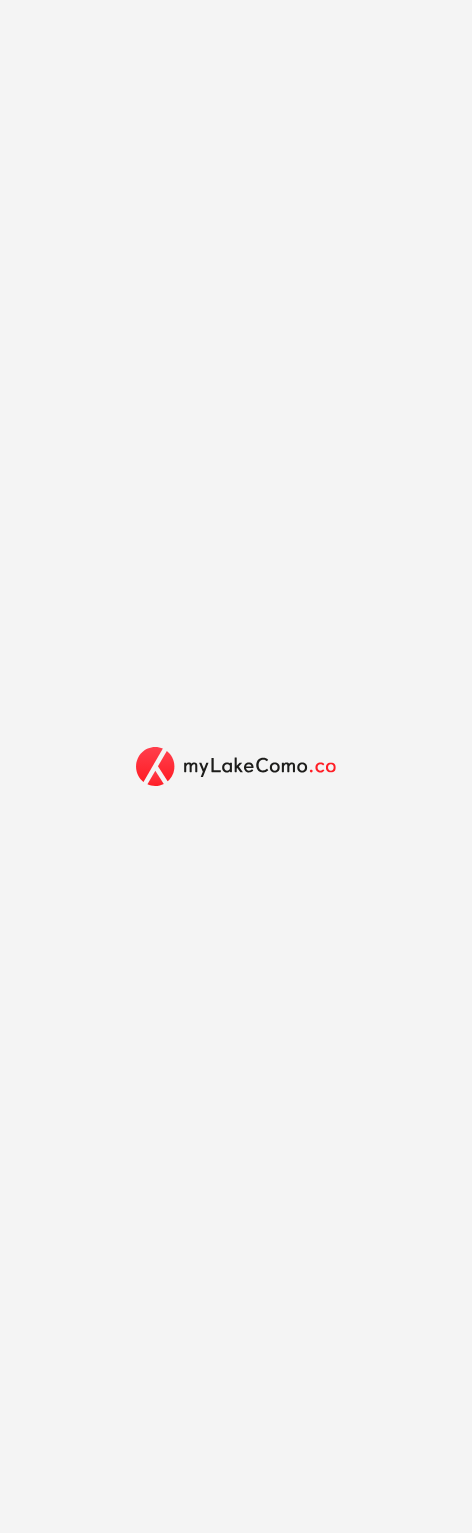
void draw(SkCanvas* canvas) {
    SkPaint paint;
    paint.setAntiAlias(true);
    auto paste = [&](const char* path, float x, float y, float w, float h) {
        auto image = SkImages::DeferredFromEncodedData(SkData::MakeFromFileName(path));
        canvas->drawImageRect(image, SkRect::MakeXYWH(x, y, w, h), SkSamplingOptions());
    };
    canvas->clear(SkColorSetRGB(244, 244, 244));
    paste("pic1.png", 136, 747, 200, 39);
}
